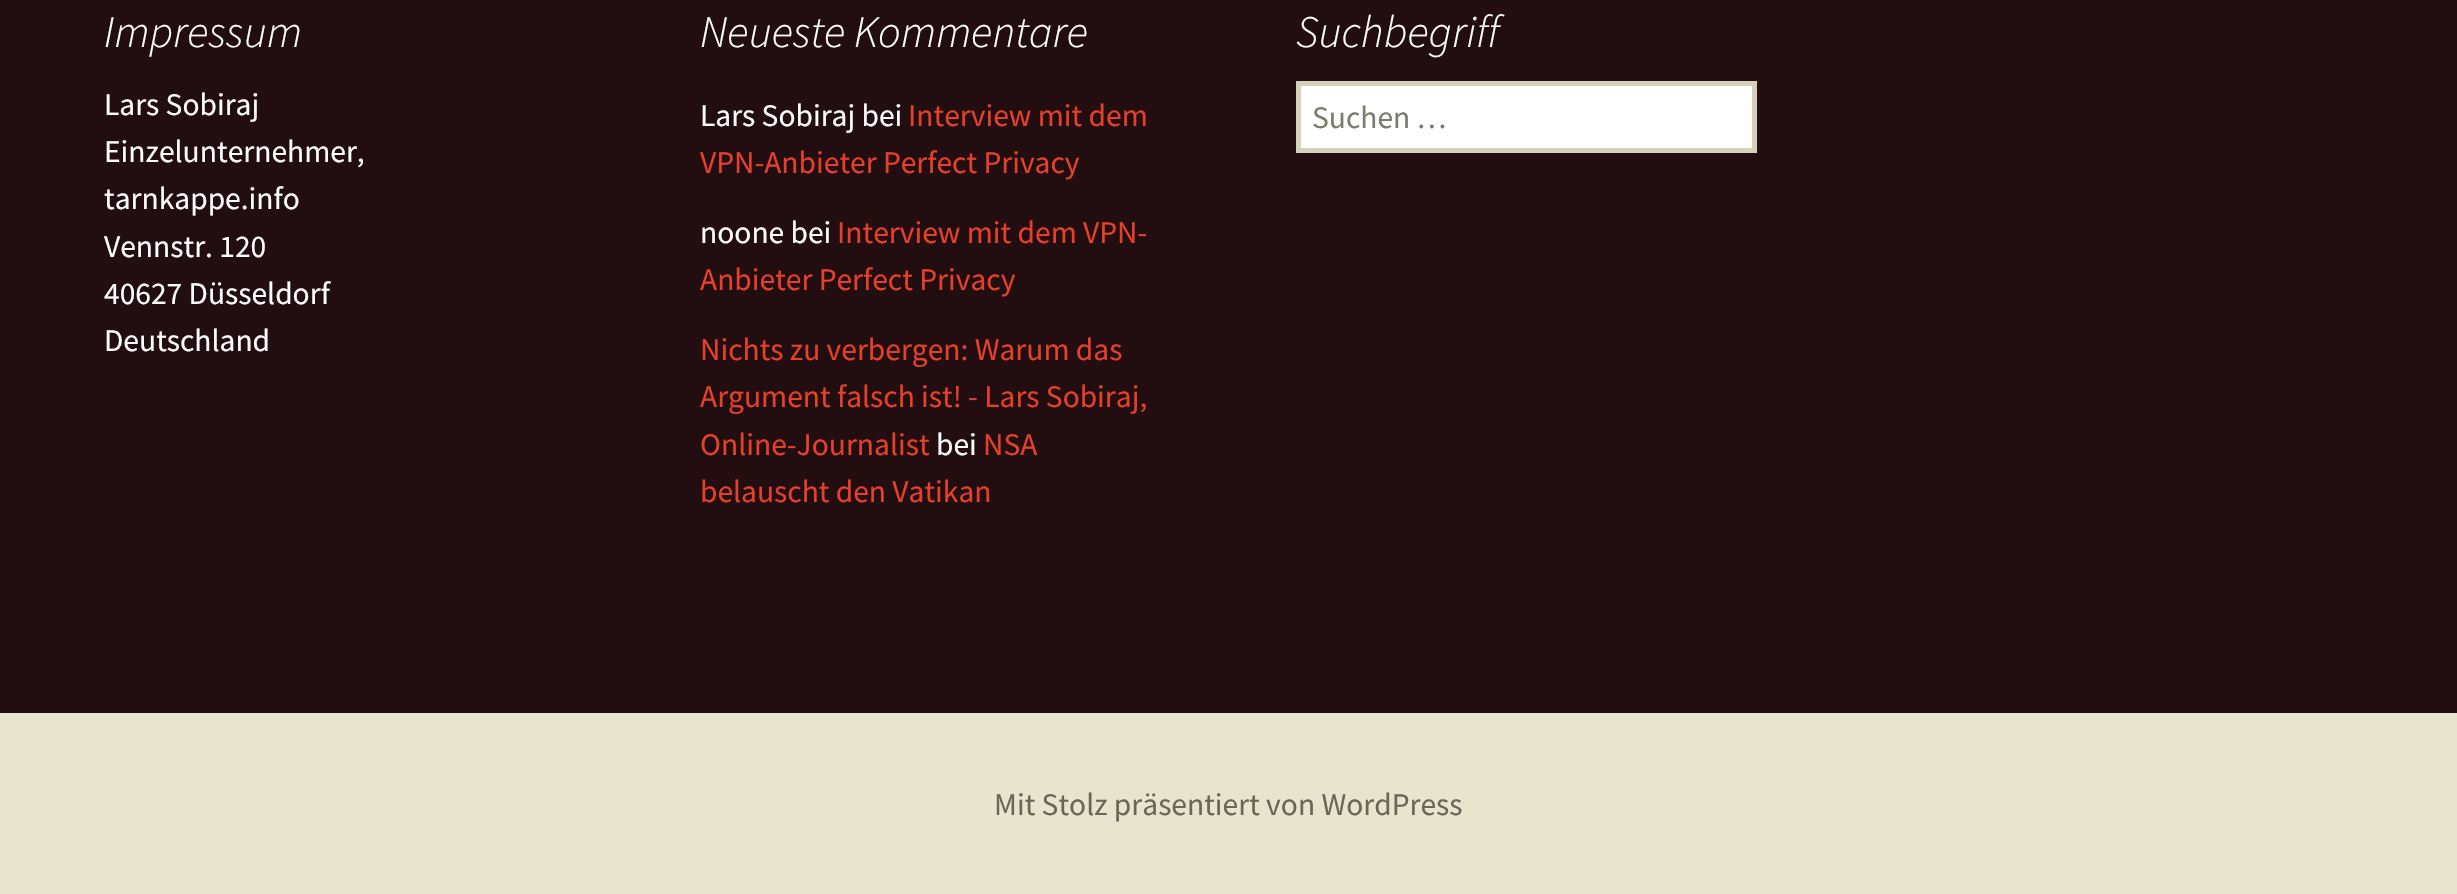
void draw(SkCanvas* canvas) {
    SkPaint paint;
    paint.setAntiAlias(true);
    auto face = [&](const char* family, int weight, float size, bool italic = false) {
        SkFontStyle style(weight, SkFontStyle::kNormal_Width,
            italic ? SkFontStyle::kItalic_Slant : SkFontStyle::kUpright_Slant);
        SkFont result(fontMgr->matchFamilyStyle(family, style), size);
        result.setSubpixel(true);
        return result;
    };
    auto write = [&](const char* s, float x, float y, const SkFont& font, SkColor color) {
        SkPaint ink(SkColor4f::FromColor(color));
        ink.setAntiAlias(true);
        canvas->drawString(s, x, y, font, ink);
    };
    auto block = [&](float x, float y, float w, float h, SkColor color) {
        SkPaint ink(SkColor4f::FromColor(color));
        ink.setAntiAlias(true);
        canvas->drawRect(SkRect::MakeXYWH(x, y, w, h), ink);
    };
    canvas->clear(SkColorSetRGB(232, 229, 206));
    block(0, 0, 2457, 713, SkColorSetRGB(34, 14, 16));
    auto kFont1 = face("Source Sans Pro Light", 300, 45, true);
    write("Impressum", 104, 47, kFont1, SK_ColorWHITE);
    auto kFont2 = face("Source Sans Pro", 400, 31.5f);
    write("Lars Sobiraj", 104, 115, kFont2, SK_ColorWHITE);
    write("Einzelunternehmer,", 104, 162, kFont2, SK_ColorWHITE);
    write("tarnkappe.info", 104, 209, kFont2, SK_ColorWHITE);
    write("Vennstr. 120", 104, 257, kFont2, SK_ColorWHITE);
    write("40627 Düsseldorf", 104, 304, kFont2, SK_ColorWHITE);
    write("Deutschland", 104, 351, kFont2, SK_ColorWHITE);
    write("Neueste Kommentare", 700, 47, kFont1, SK_ColorWHITE);
    write("Lars Sobiraj bei", 700, 126, kFont2, SK_ColorWHITE);
    write("Interview mit dem", 908, 126, kFont2, SkColorSetRGB(230, 64, 42));
    write("VPN-Anbieter Perfect Privacy", 700, 173, kFont2, SkColorSetRGB(230, 64, 42));
    write("noone bei", 700, 243, kFont2, SK_ColorWHITE);
    write("Interview mit dem VPN-", 837, 243, kFont2, SkColorSetRGB(230, 64, 42));
    write("Anbieter Perfect Privacy", 700, 290, kFont2, SkColorSetRGB(230, 64, 42));
    write("Nichts zu verbergen: Warum das", 700, 360, kFont2, SkColorSetRGB(230, 64, 42));
    write("Argument falsch ist! - Lars Sobiraj,", 700, 407, kFont2, SkColorSetRGB(230, 64, 42));
    write("Online-Journalist", 700, 455, kFont2, SkColorSetRGB(230, 64, 42));
    write("bei", 936, 455, kFont2, SK_ColorWHITE);
    write("NSA", 983, 455, kFont2, SkColorSetRGB(230, 64, 42));
    write("belauscht den Vatikan", 700, 502, kFont2, SkColorSetRGB(230, 64, 42));
    write("Suchbegriff", 1296, 47, kFont1, SK_ColorWHITE);
    paint.setColor(SK_ColorWHITE);
    canvas->drawRect(SkRect::MakeXYWH(1298.5f, 83.5f, 456, 67), paint);
    paint.setStyle(SkPaint::kStroke_Style);
    paint.setStrokeWidth(5);
    paint.setColor(SkColorSetRGB(212, 208, 186));
    canvas->drawRect(SkRect::MakeXYWH(1298.5f, 83.5f, 456, 67), paint);
    write("Suchen …", 1312, 128, kFont2, SkColorSetRGB(125, 123, 109));
    write("Mit Stolz präsentiert von WordPress", 994, 815, kFont2, SkColorSetRGB(104, 103, 88));
}
